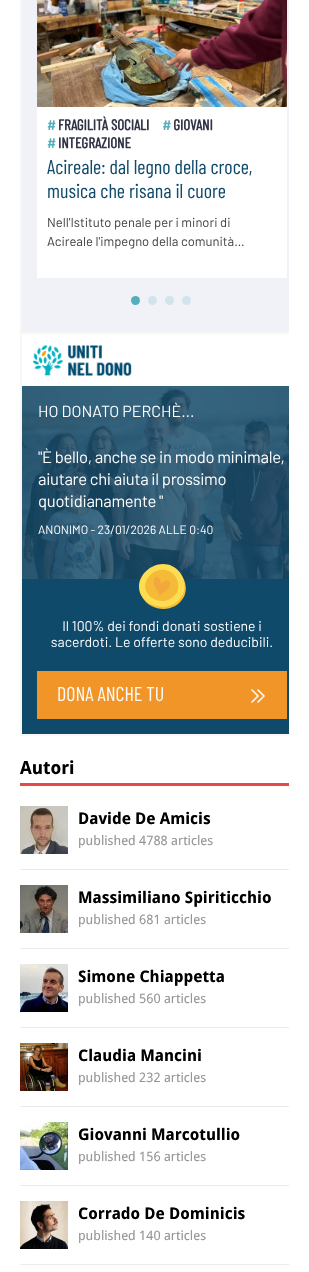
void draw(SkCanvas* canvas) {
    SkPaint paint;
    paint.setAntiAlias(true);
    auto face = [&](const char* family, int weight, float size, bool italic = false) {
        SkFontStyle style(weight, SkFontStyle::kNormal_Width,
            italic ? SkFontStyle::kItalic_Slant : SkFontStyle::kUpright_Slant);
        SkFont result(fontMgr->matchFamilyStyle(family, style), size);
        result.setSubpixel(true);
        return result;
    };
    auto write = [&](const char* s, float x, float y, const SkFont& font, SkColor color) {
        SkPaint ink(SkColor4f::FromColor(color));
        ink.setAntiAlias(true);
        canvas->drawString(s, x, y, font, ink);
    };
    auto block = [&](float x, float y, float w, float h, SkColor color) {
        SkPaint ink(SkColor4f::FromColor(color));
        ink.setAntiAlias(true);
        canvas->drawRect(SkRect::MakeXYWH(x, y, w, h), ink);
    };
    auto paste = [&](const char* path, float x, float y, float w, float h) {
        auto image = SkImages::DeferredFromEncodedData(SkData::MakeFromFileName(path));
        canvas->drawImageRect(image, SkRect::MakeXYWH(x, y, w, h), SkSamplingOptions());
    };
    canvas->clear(SK_ColorWHITE);
    block(20, 0, 269, 736, SkColorSetRGB(247, 247, 247));
    paste("pic1.png", 22, 0, 267, 332);
    paste("pic2.png", 22, 334, 267, 400);
    block(20, 783, 269, 3, SkColorSetRGB(230, 73, 70));
    auto kFont1 = face("Droid Sans", 700, 18);
    write("Autori", 20, 774, kFont1, SK_ColorBLACK);
    block(20, 869, 269, 1, SkColorSetRGB(235, 235, 235));
    paste("pic3.png", 20, 806, 48, 48);
    auto kFont2 = face("Droid Sans", 700, 16);
    write("Davide De Amicis", 78, 824, kFont2, SK_ColorBLACK);
    auto kFont3 = face("Droid Sans", 400, 13);
    write("published 4788 articles", 78, 845, kFont3, SkColorSetRGB(151, 151, 151));
    block(20, 948, 269, 1, SkColorSetRGB(235, 235, 235));
    paste("pic4.png", 20, 885, 48, 48);
    write("Massimiliano Spiriticchio", 78, 903, kFont2, SK_ColorBLACK);
    write("published 681 articles", 78, 924, kFont3, SkColorSetRGB(151, 151, 151));
    block(20, 1027, 269, 1, SkColorSetRGB(235, 235, 235));
    paste("pic5.png", 20, 964, 48, 48);
    write("Simone Chiappetta", 78, 982, kFont2, SK_ColorBLACK);
    write("published 560 articles", 78, 1003, kFont3, SkColorSetRGB(151, 151, 151));
    block(20, 1106, 269, 1, SkColorSetRGB(235, 235, 235));
    paste("pic6.png", 20, 1043, 48, 48);
    write("Claudia Mancini", 78, 1061, kFont2, SK_ColorBLACK);
    write("published 232 articles", 78, 1082, kFont3, SkColorSetRGB(151, 151, 151));
    block(20, 1185, 269, 1, SkColorSetRGB(235, 235, 235));
    paste("pic7.png", 20, 1122, 48, 48);
    write("Giovanni Marcotullio", 78, 1140, kFont2, SK_ColorBLACK);
    write("published 156 articles", 78, 1161, kFont3, SkColorSetRGB(151, 151, 151));
    block(20, 1264, 269, 1, SkColorSetRGB(235, 235, 235));
    paste("pic8.png", 20, 1201, 48, 48);
    write("Corrado De Dominicis", 78, 1219, kFont2, SK_ColorBLACK);
    write("published 140 articles", 78, 1240, kFont3, SkColorSetRGB(151, 151, 151));
}
